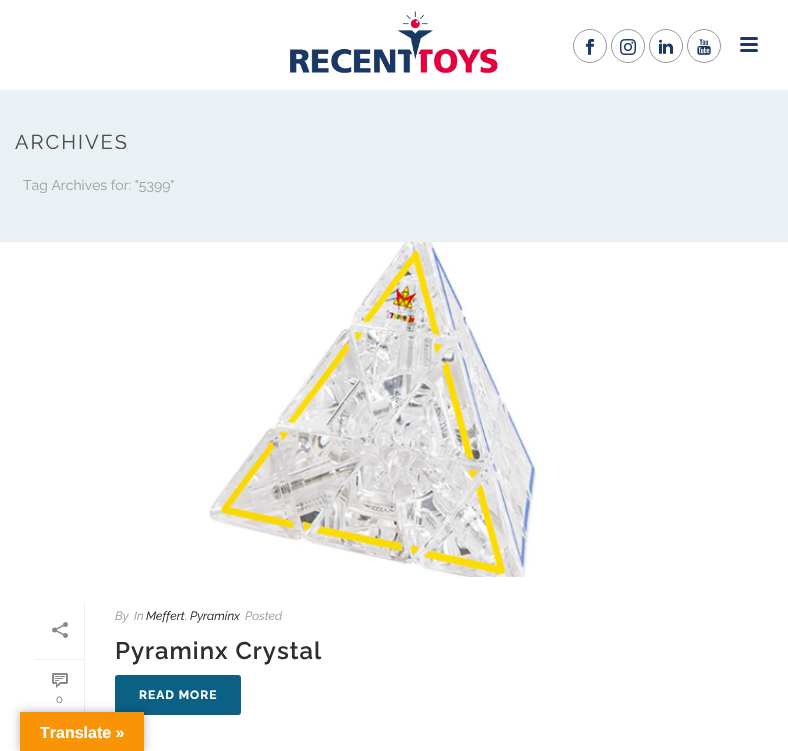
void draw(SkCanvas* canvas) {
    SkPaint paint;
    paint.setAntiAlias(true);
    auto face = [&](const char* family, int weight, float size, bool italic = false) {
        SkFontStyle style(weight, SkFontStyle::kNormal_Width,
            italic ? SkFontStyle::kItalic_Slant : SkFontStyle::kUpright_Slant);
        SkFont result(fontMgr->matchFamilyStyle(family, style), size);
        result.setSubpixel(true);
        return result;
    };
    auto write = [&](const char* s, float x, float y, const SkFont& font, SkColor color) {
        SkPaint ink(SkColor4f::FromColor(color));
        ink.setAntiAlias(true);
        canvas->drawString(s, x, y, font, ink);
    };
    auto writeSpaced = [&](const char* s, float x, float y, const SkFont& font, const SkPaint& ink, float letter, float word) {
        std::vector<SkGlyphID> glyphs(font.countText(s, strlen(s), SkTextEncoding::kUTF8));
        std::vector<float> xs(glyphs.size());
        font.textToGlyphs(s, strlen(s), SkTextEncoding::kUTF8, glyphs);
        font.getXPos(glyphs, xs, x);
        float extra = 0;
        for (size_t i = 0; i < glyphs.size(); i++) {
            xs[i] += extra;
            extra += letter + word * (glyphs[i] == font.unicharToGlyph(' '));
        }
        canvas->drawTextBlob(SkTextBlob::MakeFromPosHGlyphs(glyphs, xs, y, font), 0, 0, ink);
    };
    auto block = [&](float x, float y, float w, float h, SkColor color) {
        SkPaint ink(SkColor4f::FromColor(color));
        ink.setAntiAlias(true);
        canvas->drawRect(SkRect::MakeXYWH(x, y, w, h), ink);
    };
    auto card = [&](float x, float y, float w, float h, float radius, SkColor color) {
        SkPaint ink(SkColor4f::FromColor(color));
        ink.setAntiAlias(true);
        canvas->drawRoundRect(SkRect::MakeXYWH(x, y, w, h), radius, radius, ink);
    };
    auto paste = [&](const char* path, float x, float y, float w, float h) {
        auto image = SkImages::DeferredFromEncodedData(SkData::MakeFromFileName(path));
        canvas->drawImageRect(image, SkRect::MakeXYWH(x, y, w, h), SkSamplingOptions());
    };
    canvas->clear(SK_ColorWHITE);
    block(0, 90, 788, 151, SkColorSetRGB(234, 241, 244));
    block(0, 241, 788, 1, SkColorSetRGB(237, 237, 237));
    paste("pic1.png", 290, 11, 208, 62);
    card(740, 37, 18, 3, 1.5f, SkColorSetRGB(29, 56, 97));
    card(740, 43, 18, 3, 1.5f, SkColorSetRGB(29, 56, 97));
    card(740, 49, 18, 3, 1.5f, SkColorSetRGB(29, 56, 97));
    paint.setStyle(SkPaint::kStroke_Style);
    paint.setStrokeWidth(1);
    paint.setColor(SkColorSetRGB(153, 153, 153));
    canvas->drawCircle(590, 46, 16.5f, paint);
    paste("pic2.png", 586, 39, 8, 16);
    canvas->drawCircle(628, 46, 16.5f, paint);
    paste("pic3.png", 620, 39, 16, 16);
    canvas->drawCircle(666, 46, 16.5f, paint);
    paste("pic4.png", 659, 39, 15, 15);
    canvas->drawCircle(704, 46, 16.5f, paint);
    paste("pic5.png", 697, 39, 14, 16);
    auto kFont1 = face("Raleway", 400, 20);
    paint.setStyle(SkPaint::kFill_Style);
    paint.setColor(SkColorSetRGB(77, 77, 77));
    writeSpaced("ARCHIVES", 15, 149, kFont1, paint, 2, 0);
    auto kFont2 = face("Raleway", 400, 14);
    write("Tag Archives for: \"5399\"", 23, 190, kFont2, SkColorSetRGB(163, 163, 163));
    paste("pic6.png", 15, 242, 758, 335);
    block(84, 602, 1, 110, SkColorSetRGB(239, 239, 239));
    block(35, 659, 49, 1, SkColorSetRGB(239, 239, 239));
    paste("pic7.png", 52, 622, 16, 16);
    paste("pic8.png", 52, 673, 16, 15);
    auto kFont3 = face("Raleway", 400, 11);
    write("0", 56, 703, kFont3, SkColorSetRGB(137, 137, 137));
    auto kFont4 = face("Raleway", 400, 12, true);
    write("By", 115, 620, kFont4, SkColorSetRGB(153, 153, 153));
    write("In", 134, 620, kFont4, SkColorSetRGB(153, 153, 153));
    write("Meffert", 146, 620, kFont4, SkColorSetRGB(37, 37, 37));
    write("Pyraminx", 190, 620, kFont4, SkColorSetRGB(37, 37, 37));
    write(",", 185, 620, kFont4, SkColorSetRGB(153, 153, 153));
    write("Posted", 245, 620, kFont4, SkColorSetRGB(153, 153, 153));
    auto kFont5 = face("Raleway", 600, 24);
    paint.setColor(SkColorSetRGB(46, 46, 46));
    writeSpaced("Pyraminx Crystal", 115, 659, kFont5, paint, 1, 0);
    card(115, 675, 126, 40, 3, SkColorSetRGB(12, 96, 132));
    auto kFont6 = face("Raleway", 700, 12);
    paint.setColor(SK_ColorWHITE);
    writeSpaced("READ MORE", 139, 699, kFont6, paint, 1, 0);
    paint.setColor(SkColorSetARGB(77, 0, 0, 0));
    paint.setMaskFilter(SkMaskFilter::MakeBlur(kNormal_SkBlurStyle, 4.5f));
    canvas->drawRect(SkRect::MakeXYWH(20, 712, 124, 39), paint);
    paint.setMaskFilter(nullptr);
    block(20, 712, 124, 39, SkColorSetRGB(248, 148, 6));
    auto kFont7 = face("Liberation Sans", 700, 16);
    write("Translate »", 40, 738, kFont7, SK_ColorWHITE);
}
